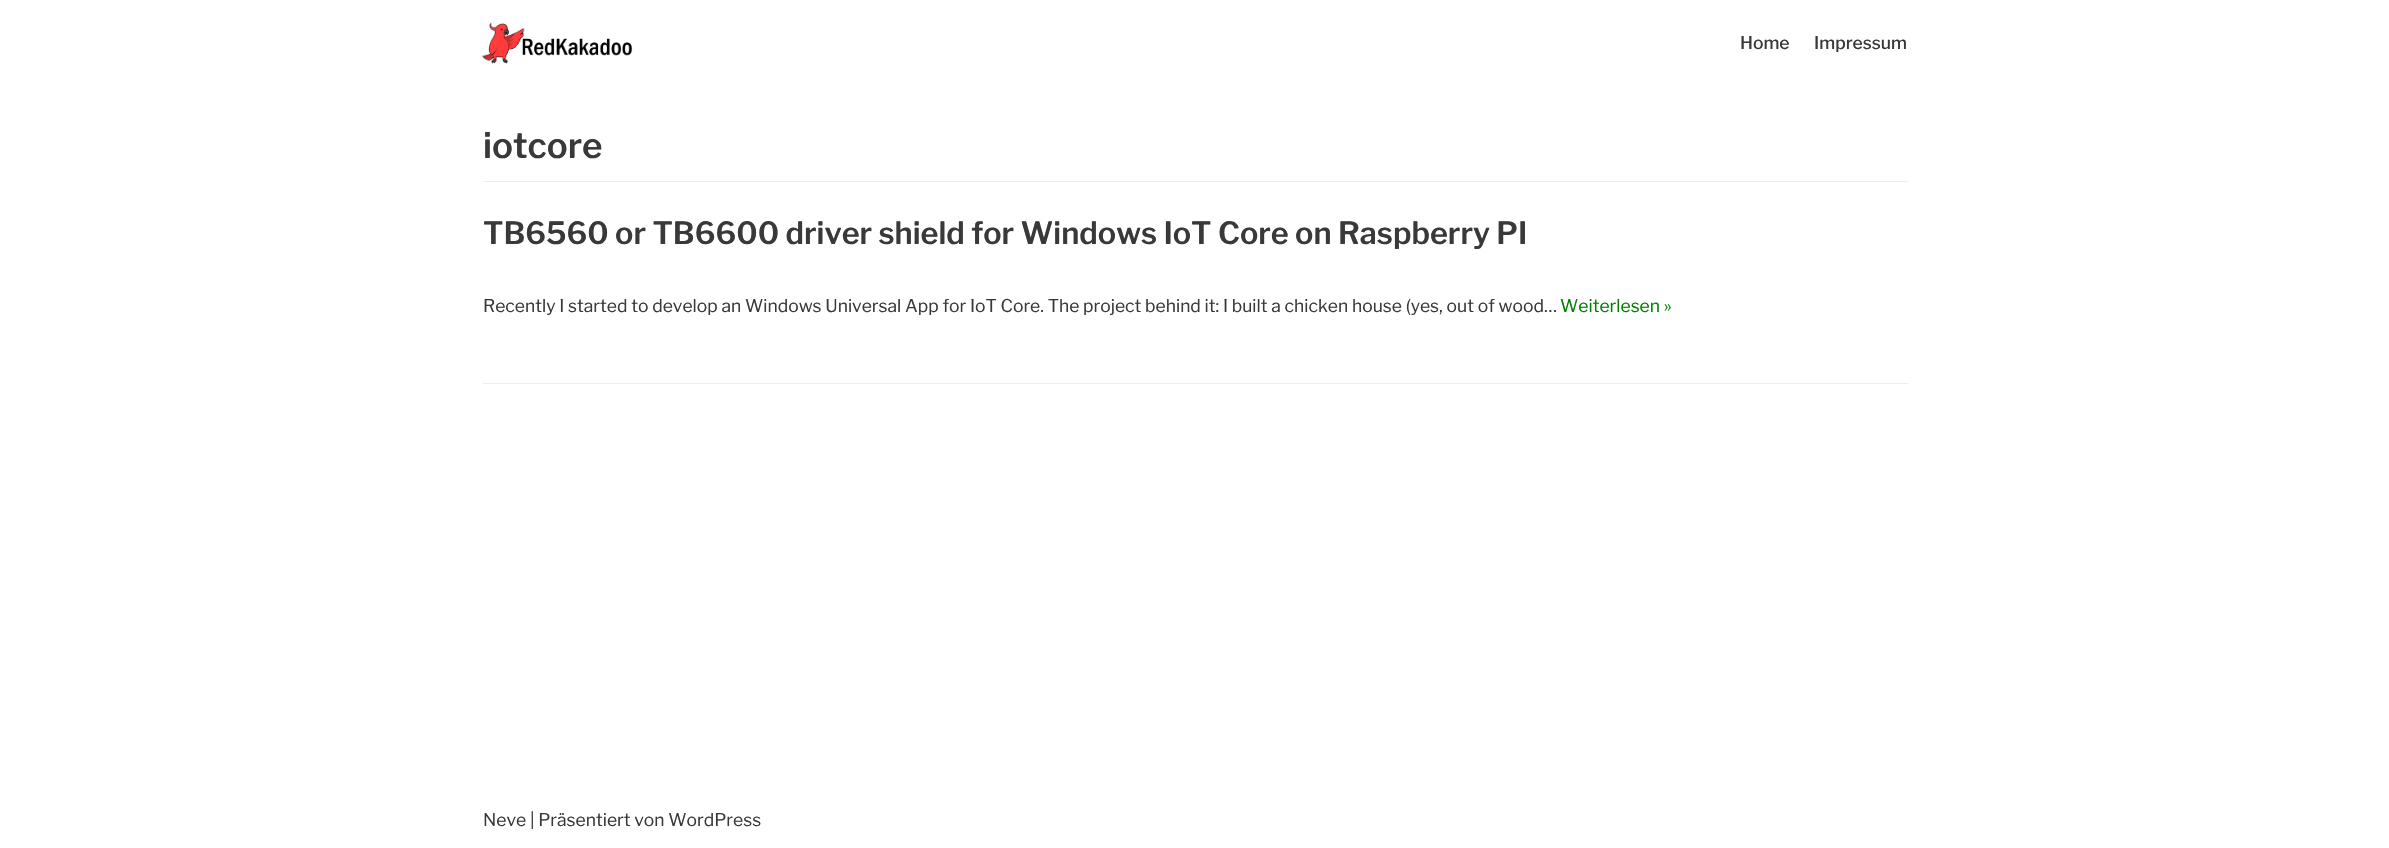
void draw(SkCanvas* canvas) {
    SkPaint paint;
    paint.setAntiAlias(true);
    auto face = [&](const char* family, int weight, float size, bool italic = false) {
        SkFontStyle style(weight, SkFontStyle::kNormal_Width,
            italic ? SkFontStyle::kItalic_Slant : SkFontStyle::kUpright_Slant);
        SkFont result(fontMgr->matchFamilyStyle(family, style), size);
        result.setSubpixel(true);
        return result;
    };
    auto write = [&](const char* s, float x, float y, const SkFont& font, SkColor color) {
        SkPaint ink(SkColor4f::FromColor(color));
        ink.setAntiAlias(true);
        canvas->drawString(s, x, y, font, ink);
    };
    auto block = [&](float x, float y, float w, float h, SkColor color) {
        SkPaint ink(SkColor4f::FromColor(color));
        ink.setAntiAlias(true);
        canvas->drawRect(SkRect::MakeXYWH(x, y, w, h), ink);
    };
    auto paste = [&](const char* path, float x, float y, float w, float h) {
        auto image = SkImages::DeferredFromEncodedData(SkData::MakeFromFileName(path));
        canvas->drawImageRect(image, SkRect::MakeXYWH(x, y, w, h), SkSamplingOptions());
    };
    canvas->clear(SK_ColorWHITE);
    paste("pic1.png", 482, 22, 151, 42);
    auto kFont1 = face("Libre Franklin", 500, 17.5f);
    write("Home", 1740, 49, kFont1, SkColorSetRGB(57, 57, 57));
    write("Impressum", 1814, 49, kFont1, SkColorSetRGB(57, 57, 57));
    block(483, 181, 1425, 1, SkColorSetRGB(237, 237, 237));
    auto kFont2 = face("Libre Franklin", 600, 35);
    write("iotcore", 483, 158, kFont2, SkColorSetRGB(57, 57, 57));
    block(483, 383, 1425, 1, SkColorSetRGB(237, 237, 237));
    auto kFont3 = face("Libre Franklin", 600, 30.6f);
    write("TB6560 or TB6600 driver shield for Windows IoT Core on Raspberry PI", 483, 244, kFont3, SkColorSetRGB(57, 57, 57));
    auto kFont4 = face("Libre Franklin", 400, 17.5f);
    write("Recently I started to develop an Windows Universal App for IoT Core. The project behind it: I built a chicken house (yes, out of wood…", 483, 312, kFont4, SkColorSetRGB(57, 57, 57));
    write("Weiterlesen »", 1560, 312, kFont4, SkColorSetRGB(1, 127, 3));
    write("Neve | Präsentiert von WordPress", 483, 826, kFont4, SkColorSetRGB(57, 57, 57));
}
